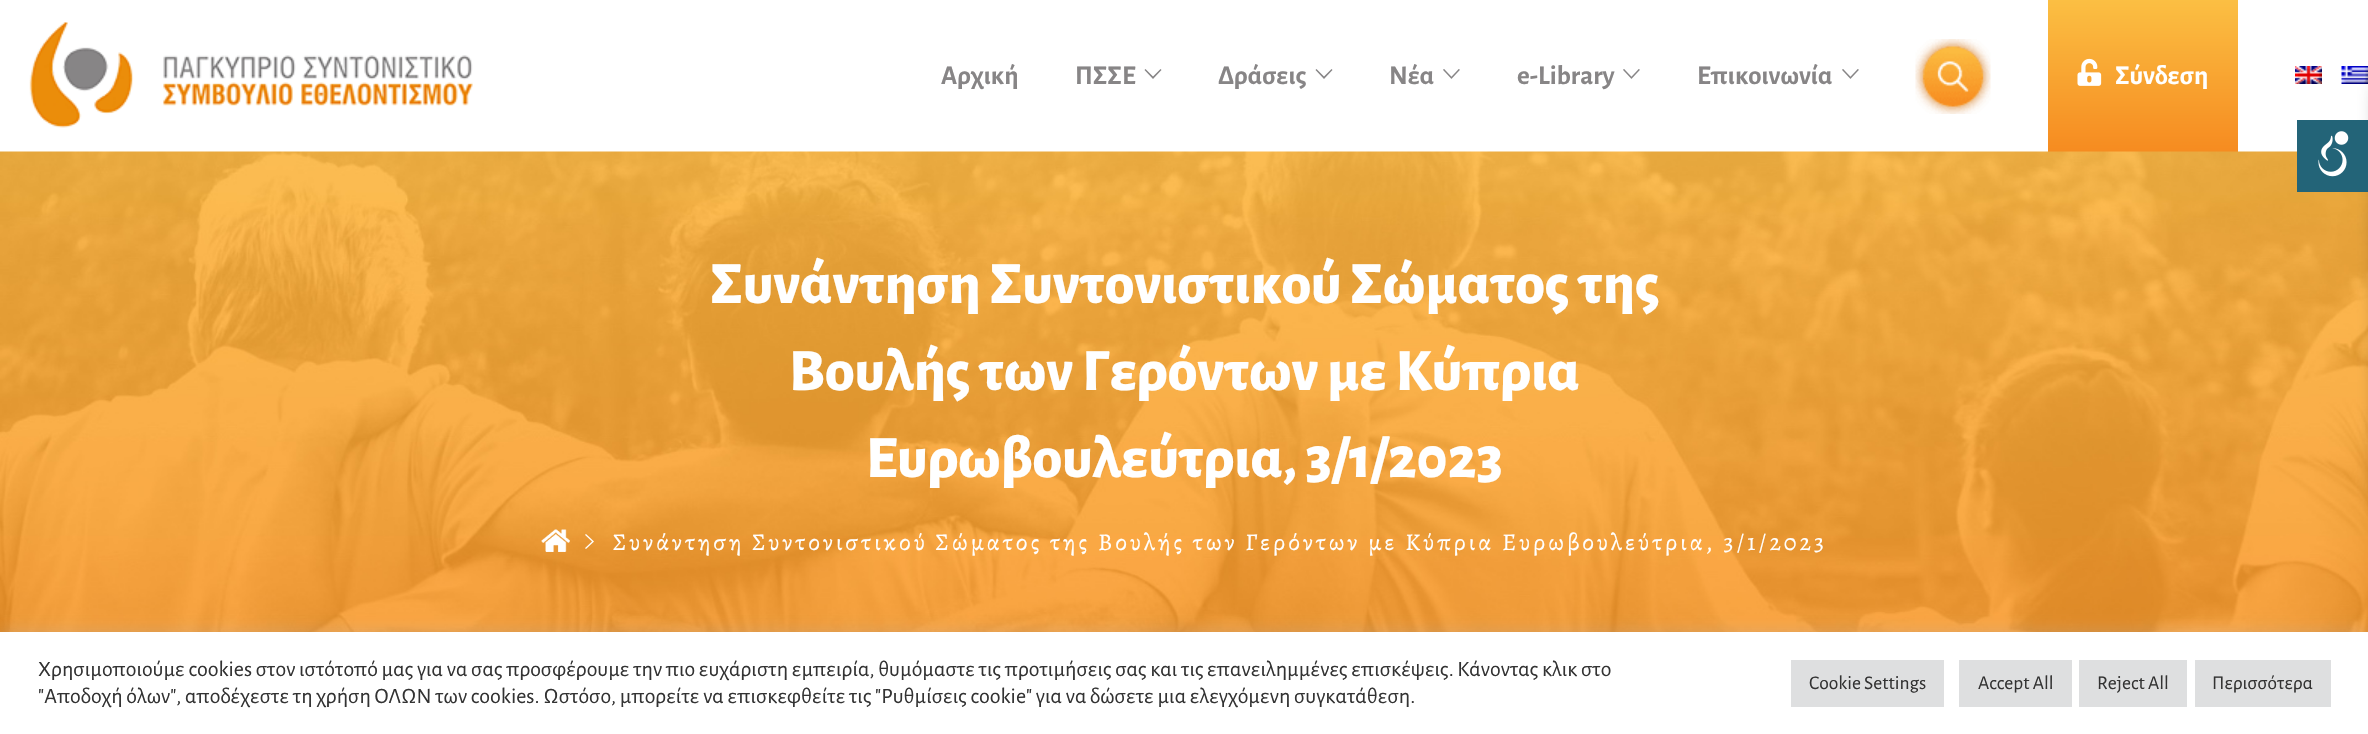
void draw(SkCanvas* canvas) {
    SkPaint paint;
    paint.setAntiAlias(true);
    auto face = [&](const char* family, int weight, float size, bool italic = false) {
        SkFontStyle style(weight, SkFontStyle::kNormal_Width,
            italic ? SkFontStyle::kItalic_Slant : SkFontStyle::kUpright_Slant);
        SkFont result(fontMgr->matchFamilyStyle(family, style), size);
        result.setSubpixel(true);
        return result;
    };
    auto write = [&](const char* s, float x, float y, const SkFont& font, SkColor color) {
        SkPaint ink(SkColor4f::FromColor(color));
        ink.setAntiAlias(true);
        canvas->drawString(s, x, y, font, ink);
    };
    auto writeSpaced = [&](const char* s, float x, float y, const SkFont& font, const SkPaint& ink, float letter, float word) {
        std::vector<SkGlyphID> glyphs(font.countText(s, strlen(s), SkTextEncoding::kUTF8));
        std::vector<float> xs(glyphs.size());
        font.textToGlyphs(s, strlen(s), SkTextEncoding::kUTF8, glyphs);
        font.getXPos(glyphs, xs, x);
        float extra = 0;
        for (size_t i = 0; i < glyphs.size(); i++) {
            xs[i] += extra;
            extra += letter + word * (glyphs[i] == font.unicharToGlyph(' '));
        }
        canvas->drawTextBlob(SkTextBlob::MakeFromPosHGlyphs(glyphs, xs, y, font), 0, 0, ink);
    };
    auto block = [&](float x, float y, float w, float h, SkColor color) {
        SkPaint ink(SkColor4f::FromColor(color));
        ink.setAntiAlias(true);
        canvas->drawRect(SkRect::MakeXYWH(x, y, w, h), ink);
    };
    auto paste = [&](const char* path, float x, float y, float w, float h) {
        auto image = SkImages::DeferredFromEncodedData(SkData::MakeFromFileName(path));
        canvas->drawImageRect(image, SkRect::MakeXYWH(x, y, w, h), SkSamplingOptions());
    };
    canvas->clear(SK_ColorWHITE);
    paste("pic1.png", 29, 22, 444, 106);
    auto kFont1 = face("Alegreya Sans", 700, 27);
    write("Αρχική", 941, 84, kFont1, SkColorSetRGB(135, 133, 134));
    write("ΠΣΣΕ", 1075, 84, kFont1, SkColorSetRGB(135, 133, 134));
    paint.setColor(SkColorSetRGB(135, 133, 134));
    canvas->drawPath(SkPathBuilder().moveTo(1160.5f, 69).lineTo(1161.5f, 70).lineTo(1153, 79).lineTo(1144.5f, 70).lineTo(1145.5f, 69).lineTo(1153, 76.5f).close().detach(), paint);
    write("Δράσεις", 1218, 84, kFont1, SkColorSetRGB(135, 133, 134));
    canvas->drawPath(SkPathBuilder().moveTo(1331.5f, 69).lineTo(1332.5f, 70).lineTo(1324, 79).lineTo(1315.5f, 70).lineTo(1316.5f, 69).lineTo(1324, 76.5f).close().detach(), paint);
    write("Νέα", 1389, 84, kFont1, SkColorSetRGB(135, 133, 134));
    paste("pic2.png", 1443, 69, 17, 10);
    write("e-Library", 1517, 84, kFont1, SkColorSetRGB(135, 133, 134));
    paste("pic2.png", 1623, 69, 17, 10);
    write("Επικοινωνία", 1697, 84, kFont1, SkColorSetRGB(135, 133, 134));
    paste("pic2.png", 1842, 69, 17, 10);
    paste("pic3.png", 1915, 39, 76, 75);
    {
        const SkColor colors[] = {SkColorSetRGB(251, 191, 67), SkColorSetRGB(246, 139, 32)};
        const float stops[] = {0, 1};
        const SkPoint ends[] = {{2143, 0}, {2143, 152}};
        paint.setShader(SkGradientShader::MakeLinear(ends, colors, stops, 2, SkTileMode::kClamp));
        paint.setAlpha(255);
    }
    canvas->drawRect(SkRect::MakeXYWH(2048, 0, 190, 152), paint);
    paste("pic4.png", 2077, 58, 25, 28);
    write("Σύνδεση", 2115, 84, kFont1, SK_ColorWHITE);
    paste("pic5.png", 2295, 66, 27, 18);
    paste("pic6.png", 2341, 66, 27, 18);
    paste("pic7.png", 0, 151, 2368, 481);
    auto kFont2 = face("Alegreya Sans", 800, 60);
    write("Συνάντηση Συντονιστικού Σώματος της", 710, 303, kFont2, SK_ColorWHITE);
    write("Βουλής των Γερόντων με Κύπρια", 789, 390, kFont2, SK_ColorWHITE);
    write("Ευρωβουλεύτρια, 3/1/2023", 866, 477, kFont2, SK_ColorWHITE);
    paste("pic8.png", 541, 529, 29, 23);
    paste("pic9.png", 585, 534, 9, 15);
    auto kFont3 = face("Alegreya", 400, 24);
    paint.setShader(nullptr);
    paint.setColor(SK_ColorWHITE);
    writeSpaced("Συνάντηση Συντονιστικού Σώματος της Βουλής των Γερόντων με Κύπρια Ευρωβουλεύτρια, 3/1/2023", 613, 550, kFont3, paint, 3, 0);
    paint.setColor(SkColorSetARGB(191, 0, 0, 0));
    paint.setMaskFilter(SkMaskFilter::MakeBlur(kNormal_SkBlurStyle, 11));
    canvas->drawRect(SkRect::MakeXYWH(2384, 87, 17, 72), paint);
    paint.setMaskFilter(nullptr);
    paint.setMaskFilter(SkMaskFilter::MakeBlur(kNormal_SkBlurStyle, 11));
    canvas->drawRect(SkRect::MakeXYWH(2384, 155, 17, 72), paint);
    paint.setMaskFilter(nullptr);
    paint.setMaskFilter(SkMaskFilter::MakeBlur(kNormal_SkBlurStyle, 11));
    canvas->drawRect(SkRect::MakeXYWH(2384, 222, 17, 72), paint);
    paint.setMaskFilter(nullptr);
    paint.setMaskFilter(SkMaskFilter::MakeBlur(kNormal_SkBlurStyle, 11));
    canvas->drawRect(SkRect::MakeXYWH(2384, 290, 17, 72), paint);
    paint.setMaskFilter(nullptr);
    paint.setMaskFilter(SkMaskFilter::MakeBlur(kNormal_SkBlurStyle, 11));
    canvas->drawRect(SkRect::MakeXYWH(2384, 357, 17, 72), paint);
    paint.setMaskFilter(nullptr);
    paint.setMaskFilter(SkMaskFilter::MakeBlur(kNormal_SkBlurStyle, 11));
    canvas->drawRect(SkRect::MakeXYWH(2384, 425, 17, 72), paint);
    paint.setMaskFilter(nullptr);
    block(2297, 120, 71, 72, SkColorSetRGB(35, 100, 120));
    paste("pic10.png", 2318, 131, 31, 46);
    paint.setColor(SkColorSetARGB(77, 172, 171, 171));
    paint.setMaskFilter(SkMaskFilter::MakeBlur(kNormal_SkBlurStyle, 7.5f));
    canvas->drawRect(SkRect::MakeXYWH(0, 630, 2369, 104), paint);
    paint.setMaskFilter(nullptr);
    block(0, 632, 2368, 102, SK_ColorWHITE);
    auto kFont4 = face("Alegreya Sans", 400, 22);
    write("Χρησιμοποιούμε cookies στον ιστότοπό μας για να σας προσφέρουμε την πιο ευχάριστη εμπειρία, θυμόμαστε τις προτιμήσεις σας και τις επανειλημμένες επισκέψεις. Κάνοντας κλικ στο", 38, 676, kFont4, SkColorSetRGB(51, 51, 51));
    write("\"Αποδοχή όλων\", αποδέχεστε τη χρήση ΟΛΩΝ των cookies. Ωστόσο, μπορείτε να επισκεφθείτε τις \"Ρυθμίσεις cookie\" για να δώσετε μια ελεγχόμενη συγκατάθεση.", 38, 703, kFont4, SkColorSetRGB(51, 51, 51));
    block(1791, 660, 153, 47, SkColorSetRGB(222, 223, 224));
    auto kFont5 = face("Alegreya Sans", 400, 19.5f);
    write("Cookie Settings", 1809, 689, kFont5, SkColorSetRGB(51, 51, 51));
    block(1959, 660, 113, 47, SkColorSetRGB(222, 223, 224));
    write("Accept All", 1978, 689, kFont5, SkColorSetRGB(51, 51, 51));
    block(2079, 660, 108, 47, SkColorSetRGB(222, 223, 224));
    write("Reject All", 2097, 689, kFont5, SkColorSetRGB(51, 51, 51));
    block(2195, 660, 136, 47, SkColorSetRGB(222, 223, 224));
    write("Περισσότερα", 2212, 689, kFont5, SkColorSetRGB(51, 51, 51));
}
